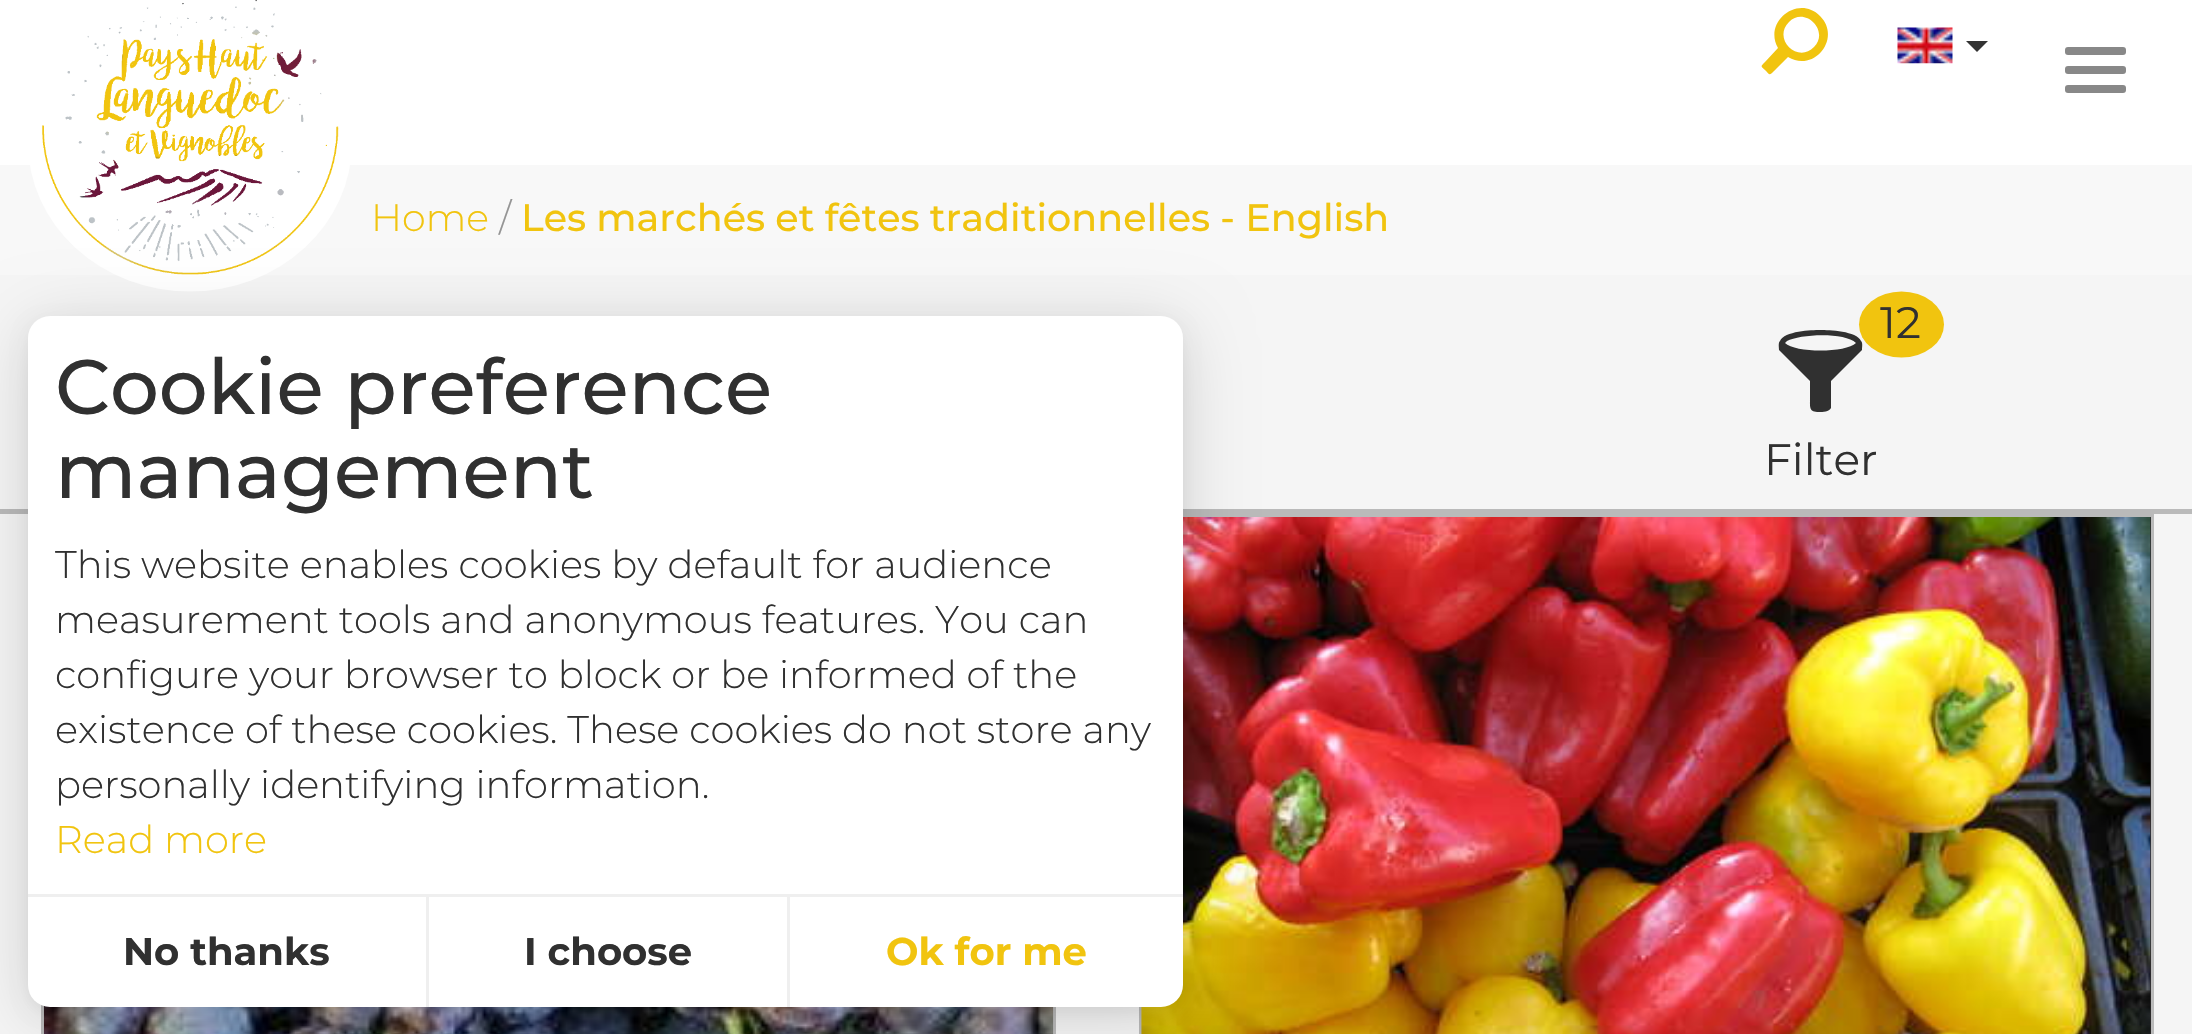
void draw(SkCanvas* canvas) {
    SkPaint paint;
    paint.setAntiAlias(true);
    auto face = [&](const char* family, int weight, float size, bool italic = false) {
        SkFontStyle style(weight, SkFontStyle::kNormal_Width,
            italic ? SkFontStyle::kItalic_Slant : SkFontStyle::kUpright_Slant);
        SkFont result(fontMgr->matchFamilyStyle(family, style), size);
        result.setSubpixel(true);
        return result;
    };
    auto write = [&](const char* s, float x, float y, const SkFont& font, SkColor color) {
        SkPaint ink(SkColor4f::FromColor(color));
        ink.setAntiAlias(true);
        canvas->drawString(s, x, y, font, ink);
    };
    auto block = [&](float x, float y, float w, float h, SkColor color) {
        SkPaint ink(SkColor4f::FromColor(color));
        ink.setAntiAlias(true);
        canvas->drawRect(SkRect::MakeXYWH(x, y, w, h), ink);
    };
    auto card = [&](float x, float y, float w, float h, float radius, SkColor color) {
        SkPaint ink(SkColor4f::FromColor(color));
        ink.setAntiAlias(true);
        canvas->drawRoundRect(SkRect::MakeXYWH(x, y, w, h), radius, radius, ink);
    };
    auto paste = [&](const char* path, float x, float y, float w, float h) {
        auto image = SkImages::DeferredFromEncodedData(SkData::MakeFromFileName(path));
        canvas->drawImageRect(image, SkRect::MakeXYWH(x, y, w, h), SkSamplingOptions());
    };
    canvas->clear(SK_ColorWHITE);
    block(0, 165, 2192, 110, SkColorSetRGB(248, 248, 248));
    block(0, 275, 2192, 234, SkColorSetRGB(245, 245, 245));
    paint.setColor(SK_ColorWHITE);
    canvas->drawOval(SkRect::MakeXYWH(28, -5.5f, 324, 297), paint);
    paste("pic1.png", 42, 0, 297, 275);
    paint.setColor(SkColorSetRGB(241, 196, 15));
    canvas->drawPath(SkPathBuilder().moveTo(1820, 16).cubicTo(1798, -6, 1763, 22, 1778, 48).lineTo(1765, 62).cubicTo(1760, 67, 1761, 66, 1765, 70).cubicTo(1770, 75, 1769, 76, 1774, 71).lineTo(1788, 57).cubicTo(1814, 73, 1842, 38, 1820, 16).close().moveTo(1814, 47).cubicTo(1798, 64, 1772, 39, 1789, 22).cubicTo(1805, 6, 1830, 31, 1814, 47).close().detach(), paint);
    paste("pic2.png", 1897, 27, 56, 37);
    paint.setColor(SkColorSetRGB(51, 51, 51));
    canvas->drawPath(SkPathBuilder().moveTo(1966, 41).lineTo(1988, 41).lineTo(1977, 52).close().detach(), paint);
    card(2065, 47, 61, 8, 3, SkColorSetRGB(136, 136, 136));
    card(2065, 66, 61, 8, 3, SkColorSetRGB(136, 136, 136));
    card(2065, 85, 61, 8, 3, SkColorSetRGB(136, 136, 136));
    auto kFont1 = face("Montserrat", 100, 38.1f);
    write("Home", 371, 231, kFont1, SkColorSetRGB(241, 196, 15));
    write("/", 499, 231, kFont1, SkColorSetRGB(149, 149, 149));
    auto kFont2 = face("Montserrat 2", 100, 38.1f);
    write("Les marchés et fêtes traditionnelles - English", 521, 231, kFont2, SkColorSetRGB(241, 196, 15));
    block(0, 509, 2192, 5, SkColorSetRGB(186, 186, 186));
    paint.setColor(SkColorSetRGB(48, 48, 48));
    canvas->drawPath(SkPathBuilder().moveTo(1820, 330).cubicTo(1812, 330, 1784, 331, 1780, 341).cubicTo(1778, 343, 1779, 347, 1779, 350).lineTo(1810, 381).lineTo(1810, 398).cubicTo(1810, 408, 1809, 412, 1819, 412).cubicTo(1823, 412, 1829, 412, 1831, 408).lineTo(1831, 381).lineTo(1862, 350).cubicTo(1862, 347, 1863, 343, 1861, 341).cubicTo(1857, 331, 1829, 330, 1820, 330).close().moveTo(1787, 341).cubicTo(1800, 334, 1845, 332, 1856, 343).cubicTo(1846, 353, 1795, 353, 1785, 343).close().detach(), paint);
    paint.setColor(SkColorSetRGB(241, 196, 15));
    canvas->drawOval(SkRect::MakeXYWH(1859, 291.5f, 85, 66), paint);
    auto kFont3 = face("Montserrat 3", 100, 44);
    write("12", 1880, 338, kFont3, SkColorSetRGB(48, 48, 48));
    write("Filter", 1764, 475, kFont3, SkColorSetRGB(48, 48, 48));
    block(0, 514, 2192, 520, SkColorSetRGB(245, 245, 245));
    block(1053, 1007, 3, 27, SkColorSetRGB(186, 186, 186));
    block(41, 1005, 3, 29, SkColorSetRGB(186, 186, 186));
    paste("pic3.png", 44, 1006, 1010, 28);
    block(2150, 517, 1, 517, SkColorSetRGB(46, 43, 43));
    block(1183, 514, 970, 3, SkColorSetRGB(186, 186, 186));
    block(2151, 514, 3, 520, SkColorSetRGB(186, 186, 186));
    block(1139, 1007, 3, 27, SkColorSetRGB(186, 186, 186));
    paste("pic4.png", 1141, 517, 1010, 517);
    paint.setColor(SkColorSetARGB(13, 0, 0, 0));
    paint.setMaskFilter(SkMaskFilter::MakeBlur(kNormal_SkBlurStyle, 8));
    canvas->drawRoundRect(SkRect::MakeXYWH(28, 322, 1155, 690), 22, 22, paint);
    paint.setMaskFilter(nullptr);
    paint.setColor(SkColorSetARGB(38, 0, 0, 0));
    paint.setMaskFilter(SkMaskFilter::MakeBlur(kNormal_SkBlurStyle, 33));
    canvas->drawRoundRect(SkRect::MakeXYWH(28, 327, 1155, 691), 22, 22, paint);
    paint.setMaskFilter(nullptr);
    card(28, 316, 1155, 691, 22, SK_ColorWHITE);
    auto kFont4 = face("Montserrat 2", 100, 77);
    write("Cookie preference", 55, 414, kFont4, SkColorSetRGB(48, 48, 48));
    write("management", 55, 498, kFont4, SkColorSetRGB(48, 48, 48));
    auto kFont5 = face("Montserrat", 100, 38.5f);
    write("This website enables cookies by default for audience", 55, 578, kFont5, SkColorSetRGB(48, 48, 48));
    write("measurement tools and anonymous features. You can", 55, 633, kFont5, SkColorSetRGB(48, 48, 48));
    write("configure your browser to block or be informed of the", 55, 688, kFont5, SkColorSetRGB(48, 48, 48));
    write("existence of these cookies. These cookies do not store any", 55, 743, kFont5, SkColorSetRGB(48, 48, 48));
    write("personally identifying information.", 55, 798, kFont5, SkColorSetRGB(48, 48, 48));
    write("Read more", 55, 853, kFont5, SkColorSetRGB(241, 196, 15));
    block(28, 894, 1155, 3, SkColorSetRGB(239, 239, 239));
    block(426, 897, 3, 110, SkColorSetRGB(239, 239, 239));
    auto kFont6 = face("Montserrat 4", 100, 38.5f);
    write("No thanks", 123, 965, kFont6, SkColorSetRGB(48, 48, 48));
    block(787, 897, 3, 110, SkColorSetRGB(239, 239, 239));
    write("I choose", 524, 965, kFont6, SkColorSetRGB(48, 48, 48));
    write("Ok for me", 886, 965, kFont6, SkColorSetRGB(241, 196, 15));
}
